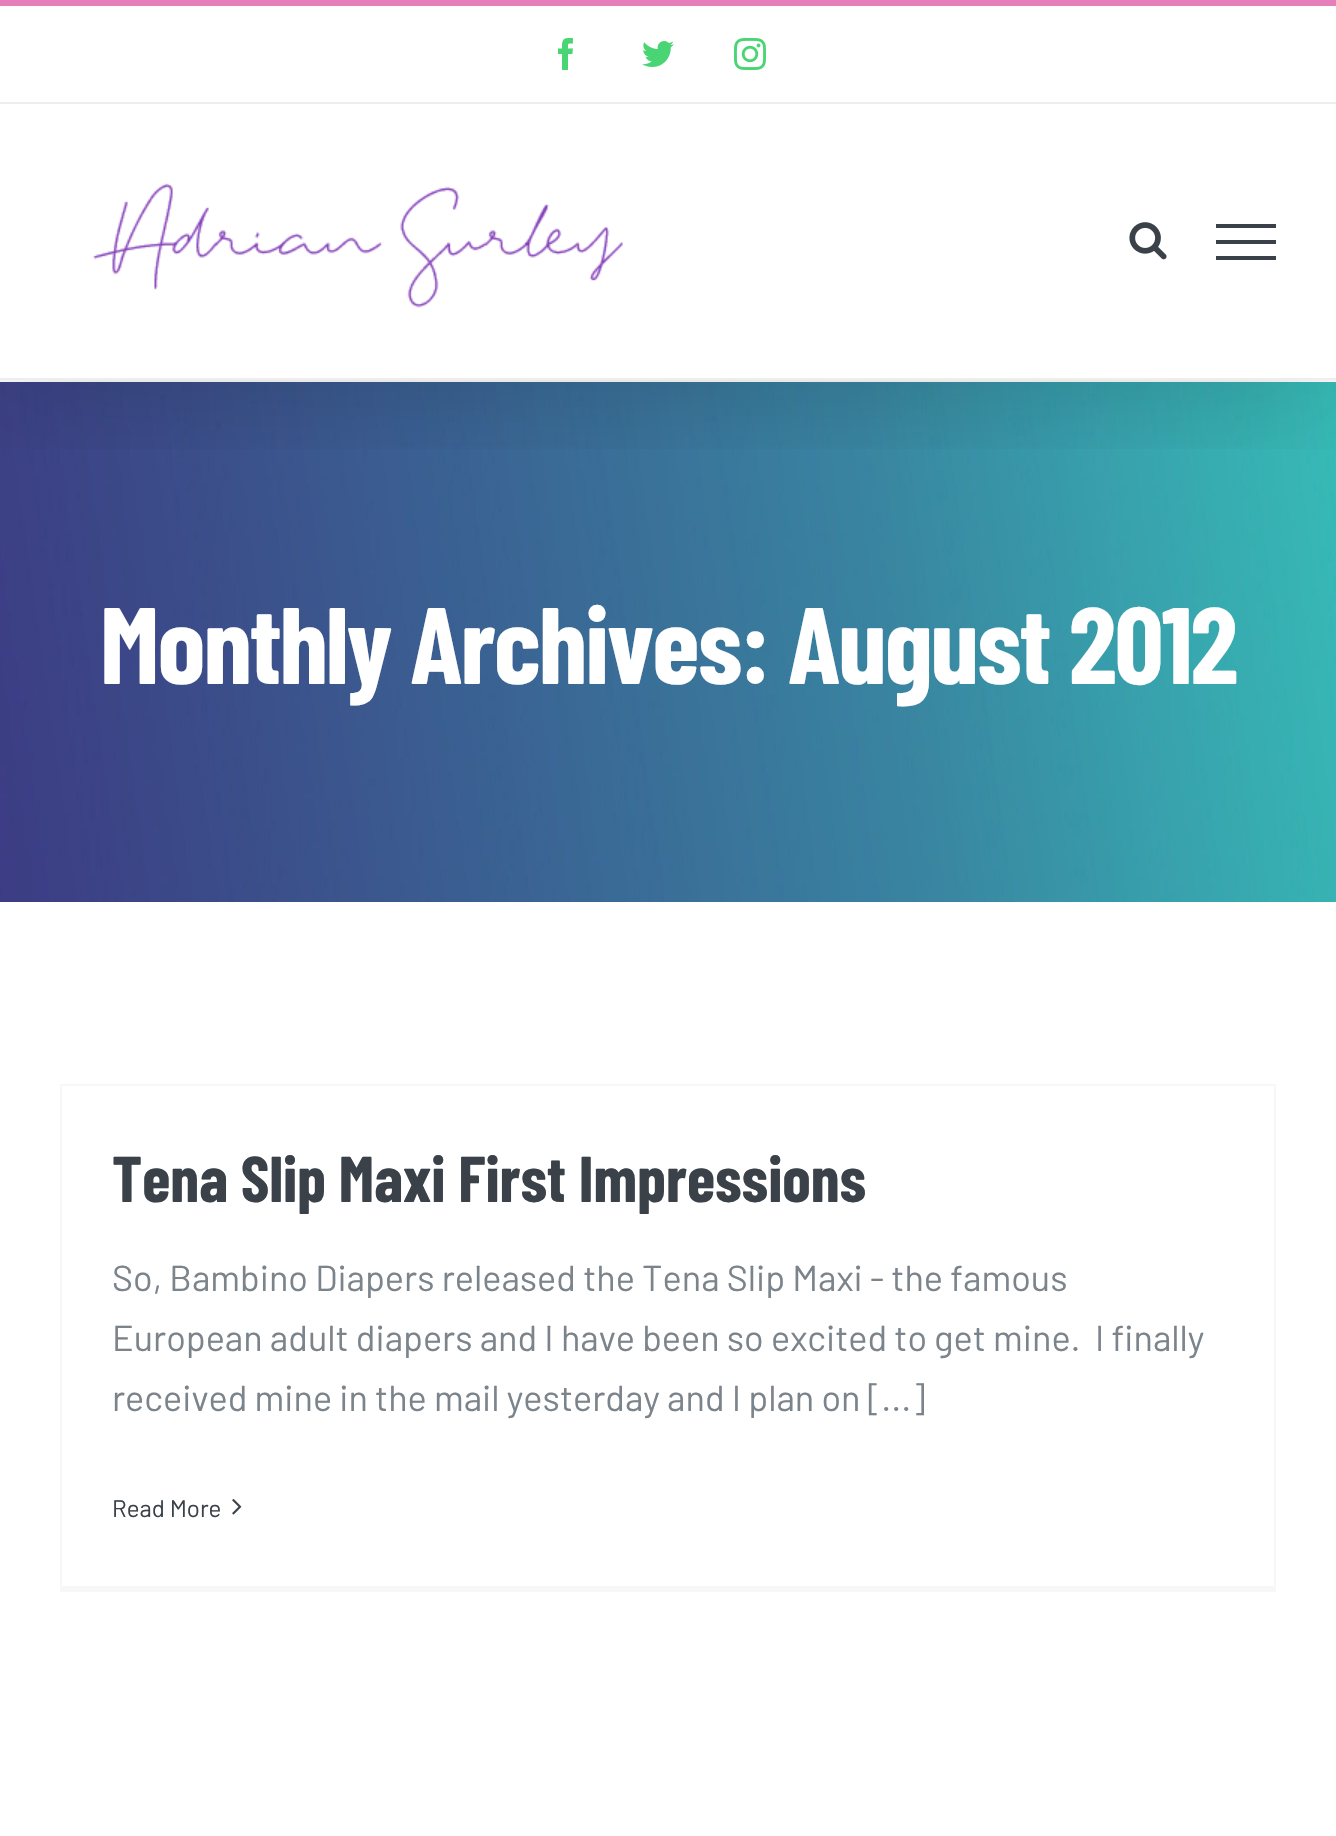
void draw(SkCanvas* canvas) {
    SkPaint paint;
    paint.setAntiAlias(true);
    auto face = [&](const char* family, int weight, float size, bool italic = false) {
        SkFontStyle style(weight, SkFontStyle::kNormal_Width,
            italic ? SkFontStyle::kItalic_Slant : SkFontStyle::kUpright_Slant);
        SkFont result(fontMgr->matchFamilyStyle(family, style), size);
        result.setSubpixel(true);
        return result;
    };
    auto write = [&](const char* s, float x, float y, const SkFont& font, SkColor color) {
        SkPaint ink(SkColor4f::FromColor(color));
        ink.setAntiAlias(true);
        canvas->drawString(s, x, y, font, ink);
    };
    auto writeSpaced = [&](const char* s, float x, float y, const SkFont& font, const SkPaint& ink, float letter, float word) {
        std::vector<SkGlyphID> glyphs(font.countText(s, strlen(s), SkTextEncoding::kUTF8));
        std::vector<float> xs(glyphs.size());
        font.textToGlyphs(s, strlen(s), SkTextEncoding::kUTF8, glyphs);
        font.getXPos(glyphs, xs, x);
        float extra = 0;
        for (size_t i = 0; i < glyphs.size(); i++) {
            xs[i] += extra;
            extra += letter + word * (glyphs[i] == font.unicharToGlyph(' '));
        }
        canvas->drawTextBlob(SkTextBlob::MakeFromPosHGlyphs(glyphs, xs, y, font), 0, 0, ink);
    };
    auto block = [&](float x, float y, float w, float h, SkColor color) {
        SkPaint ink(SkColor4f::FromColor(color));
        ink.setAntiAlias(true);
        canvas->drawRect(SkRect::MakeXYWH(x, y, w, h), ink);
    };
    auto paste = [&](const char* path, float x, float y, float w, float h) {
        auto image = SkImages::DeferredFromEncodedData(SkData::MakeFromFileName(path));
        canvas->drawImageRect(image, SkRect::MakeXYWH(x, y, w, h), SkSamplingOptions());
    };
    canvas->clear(SK_ColorWHITE);
    paste("pic6.png", 0, 382, 1336, 520);
    canvas->save();
    canvas->clipRect(SkRect::MakeXYWH(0, 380, 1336, 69));
    paint.setColor(SkColorSetARGB(36, 0, 0, 0));
    paint.setMaskFilter(SkMaskFilter::MakeBlur(kNormal_SkBlurStyle, 50));
    canvas->drawRect(SkRect::MakeXYWH(4, 24, 1328, 372), paint);
    paint.setMaskFilter(nullptr);
    canvas->restore();
    block(0, 0, 1336, 6, SkColorSetRGB(230, 127, 185));
    block(0, 102, 1336, 2, SkColorSetRGB(238, 238, 238));
    paste("pic1.png", 558, 38, 15, 32);
    paste("pic2.png", 642, 41, 32, 26);
    paste("pic3.png", 734, 38, 32, 32);
    block(0, 378, 1336, 2, SkColorSetRGB(238, 238, 238));
    paste("pic4.png", 92, 183, 531, 125);
    paste("pic5.png", 1129, 222, 38, 38);
    block(1216, 224, 60, 4, SkColorSetRGB(58, 65, 73));
    block(1216, 240, 60, 4, SkColorSetRGB(58, 65, 73));
    block(1216, 256, 60, 4, SkColorSetRGB(58, 65, 73));
    auto kFont1 = face("Barlow Condensed", 700, 108.5f);
    paint.setColor(SK_ColorWHITE);
    writeSpaced("Monthly Archives: August 2012", 100, 684, kFont1, paint, -2, 0);
    block(60, 1084, 1216, 2, SkColorSetRGB(247, 247, 247));
    block(1274, 1084, 2, 508, SkColorSetRGB(247, 247, 247));
    block(60, 1586, 1216, 6, SkColorSetRGB(247, 247, 247));
    block(60, 1084, 2, 508, SkColorSetRGB(247, 247, 247));
    auto kFont2 = face("Barlow Condensed", 700, 64.5f);
    write("Tena Slip Maxi First Impressions", 112, 1202, kFont2, SkColorSetRGB(58, 65, 73));
    auto kFont3 = face("Barlow", 400, 36);
    write("So, Bambino Diapers released the Tena Slip Maxi - the famous", 112, 1291, kFont3, SkColorSetRGB(123, 131, 139));
    write("European adult diapers and I have been so excited to get mine.  I finally", 112, 1351, kFont3, SkColorSetRGB(123, 131, 139));
    write("received mine in the mail yesterday and I plan on [...]", 112, 1411, kFont3, SkColorSetRGB(123, 131, 139));
    auto kFont4 = face("Barlow", 400, 24);
    write("Read More", 112, 1517, kFont4, SkColorSetRGB(58, 65, 73));
    paste("pic7.png", 232, 1499, 10, 16);
}
